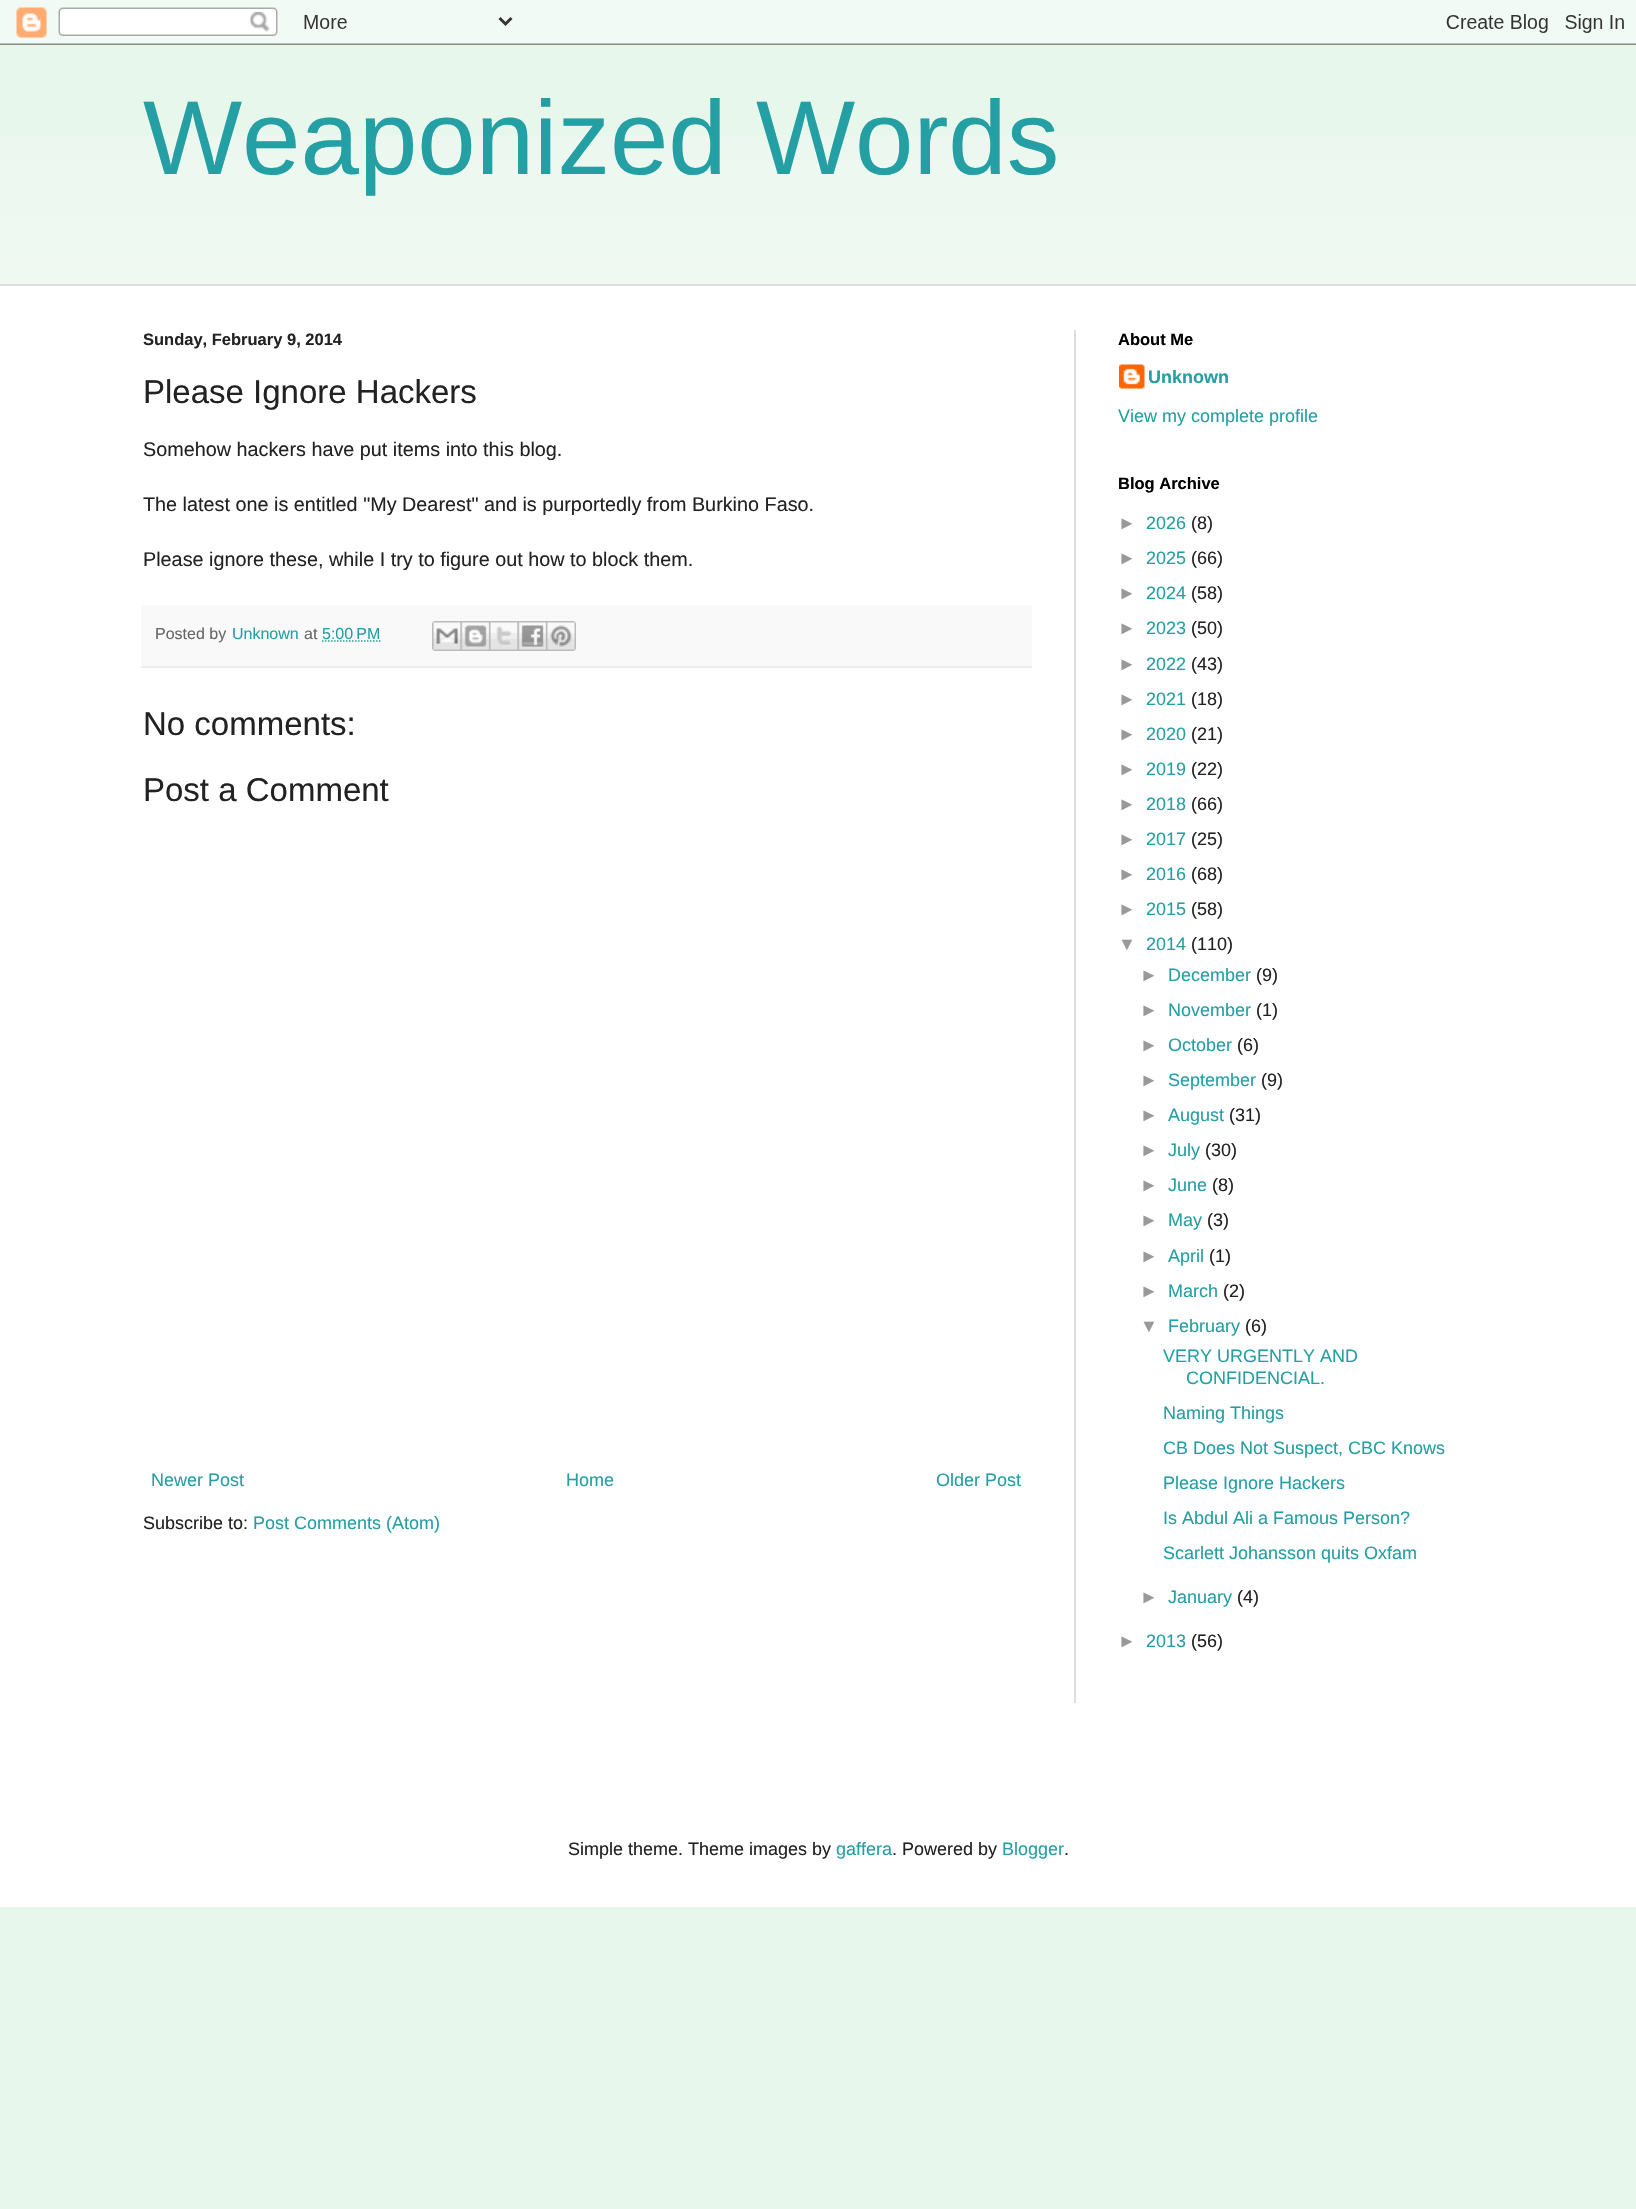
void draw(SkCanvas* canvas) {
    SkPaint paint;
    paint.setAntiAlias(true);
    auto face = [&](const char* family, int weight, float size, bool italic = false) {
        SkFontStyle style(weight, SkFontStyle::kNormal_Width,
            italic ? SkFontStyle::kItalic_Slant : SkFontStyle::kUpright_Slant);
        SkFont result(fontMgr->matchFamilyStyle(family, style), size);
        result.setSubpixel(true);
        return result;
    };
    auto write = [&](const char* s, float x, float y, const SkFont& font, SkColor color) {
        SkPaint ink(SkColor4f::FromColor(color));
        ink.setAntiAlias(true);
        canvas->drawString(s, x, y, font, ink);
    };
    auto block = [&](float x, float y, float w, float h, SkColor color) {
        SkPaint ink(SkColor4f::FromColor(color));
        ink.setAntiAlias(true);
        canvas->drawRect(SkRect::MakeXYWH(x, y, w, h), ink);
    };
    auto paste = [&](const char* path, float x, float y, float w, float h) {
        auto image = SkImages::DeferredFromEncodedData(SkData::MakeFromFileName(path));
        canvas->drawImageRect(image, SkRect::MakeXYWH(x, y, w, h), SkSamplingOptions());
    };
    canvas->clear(SkColorSetRGB(232, 247, 236));
    paste("pic1.png", 0, 0, 1636, 45);
    paste("pic8.png", 0, 135, 1636, 149);
    auto kFont1 = face("Liberation Sans", 400, 105);
    write("Weaponized Words", 143, 174, kFont1, SkColorSetRGB(36, 159, 163));
    block(0, 286, 1636, 1621, SK_ColorWHITE);
    block(0, 284, 1636, 2, SkColorSetRGB(221, 221, 221));
    block(1074, 330, 2, 1373, SkColorSetRGB(221, 221, 221));
    auto kFont2 = face("Liberation Sans", 700, 16.5f);
    write("Sunday, February 9, 2014", 143, 345, kFont2, SkColorSetRGB(34, 34, 34));
    auto kFont3 = face("Liberation Sans", 400, 33);
    write("Please Ignore Hackers", 143, 403, kFont3, SkColorSetRGB(34, 34, 34));
    auto kFont4 = face("Liberation Sans", 400, 19.8f);
    write("Somehow hackers have put items into this blog.", 143, 456, kFont4, SkColorSetRGB(34, 34, 34));
    write("The latest one is entitled \"My Dearest\" and is purportedly from Burkino Faso.", 143, 511, kFont4, SkColorSetRGB(34, 34, 34));
    write("Please ignore these, while I try to figure out how to block them.", 143, 566, kFont4, SkColorSetRGB(34, 34, 34));
    block(141, 605, 891, 61, SkColorSetRGB(249, 249, 249));
    block(141, 666, 891, 2, SkColorSetRGB(238, 238, 238));
    auto kFont5 = face("Liberation Sans", 400, 16);
    write("Posted by", 155, 639, kFont5, SkColorSetRGB(102, 102, 102));
    write("Unknown", 232, 639, kFont5, SkColorSetRGB(36, 159, 163));
    write("at", 304, 639, kFont5, SkColorSetRGB(102, 102, 102));
    write("5:00 PM", 322, 639, kFont5, SkColorSetRGB(36, 159, 163));
    paint.setStyle(SkPaint::kStroke_Style);
    paint.setStrokeWidth(1.5f);
    paint.setColor(SkColorSetRGB(36, 159, 163));
    paint.setPathEffect(SkDashPathEffect::Make({{1.5f, 1.5f}}, 0));
    canvas->drawPath(SkPathBuilder().moveTo(322, 641).lineTo(381, 641).detach(), paint);
    paint.setPathEffect(nullptr);
    paste("pic2.png", 432, 621, 29, 30);
    paste("pic3.png", 460, 621, 29, 30);
    paste("pic4.png", 489, 621, 29, 30);
    paste("pic5.png", 517, 621, 29, 30);
    paste("pic6.png", 546, 621, 30, 30);
    write("No comments:", 143, 735, kFont3, SkColorSetRGB(34, 34, 34));
    write("Post a Comment", 143, 801, kFont3, SkColorSetRGB(34, 34, 34));
    auto kFont6 = face("Liberation Sans", 400, 18);
    write("Newer Post", 151, 1486, kFont6, SkColorSetRGB(36, 159, 163));
    write("Home", 566, 1486, kFont6, SkColorSetRGB(36, 159, 163));
    write("Older Post", 936, 1486, kFont6, SkColorSetRGB(36, 159, 163));
    write("Subscribe to:", 143, 1529, kFont6, SkColorSetRGB(34, 34, 34));
    write("Post Comments (Atom)", 253, 1529, kFont6, SkColorSetRGB(36, 159, 163));
    write("About Me", 1118, 345, kFont2, SK_ColorBLACK);
    paste("pic7.png", 1119, 364, 26, 25);
    auto kFont7 = face("Liberation Sans", 700, 18);
    write("Unknown", 1148, 383, kFont7, SkColorSetRGB(36, 159, 163));
    write("View my complete profile", 1118, 422, kFont6, SkColorSetRGB(36, 159, 163));
    write("Blog Archive", 1118, 489, kFont2, SK_ColorBLACK);
    write("►", 1118, 529, kFont6, SkColorSetRGB(153, 153, 153));
    write("2026", 1146, 529, kFont6, SkColorSetRGB(36, 159, 163));
    write("(8)", 1191, 529, kFont6, SkColorSetRGB(34, 34, 34));
    write("►", 1118, 564, kFont6, SkColorSetRGB(153, 153, 153));
    write("2025", 1146, 564, kFont6, SkColorSetRGB(36, 159, 163));
    write("(66)", 1191, 564, kFont6, SkColorSetRGB(34, 34, 34));
    write("►", 1118, 599, kFont6, SkColorSetRGB(153, 153, 153));
    write("2024", 1146, 599, kFont6, SkColorSetRGB(36, 159, 163));
    write("(58)", 1191, 599, kFont6, SkColorSetRGB(34, 34, 34));
    write("►", 1118, 634, kFont6, SkColorSetRGB(153, 153, 153));
    write("2023", 1146, 634, kFont6, SkColorSetRGB(36, 159, 163));
    write("(50)", 1191, 634, kFont6, SkColorSetRGB(34, 34, 34));
    write("►", 1118, 670, kFont6, SkColorSetRGB(153, 153, 153));
    write("2022", 1146, 670, kFont6, SkColorSetRGB(36, 159, 163));
    write("(43)", 1191, 670, kFont6, SkColorSetRGB(34, 34, 34));
    write("►", 1118, 705, kFont6, SkColorSetRGB(153, 153, 153));
    write("2021", 1146, 705, kFont6, SkColorSetRGB(36, 159, 163));
    write("(18)", 1191, 705, kFont6, SkColorSetRGB(34, 34, 34));
    write("►", 1118, 740, kFont6, SkColorSetRGB(153, 153, 153));
    write("2020", 1146, 740, kFont6, SkColorSetRGB(36, 159, 163));
    write("(21)", 1191, 740, kFont6, SkColorSetRGB(34, 34, 34));
    write("►", 1118, 775, kFont6, SkColorSetRGB(153, 153, 153));
    write("2019", 1146, 775, kFont6, SkColorSetRGB(36, 159, 163));
    write("(22)", 1191, 775, kFont6, SkColorSetRGB(34, 34, 34));
    write("►", 1118, 810, kFont6, SkColorSetRGB(153, 153, 153));
    write("2018", 1146, 810, kFont6, SkColorSetRGB(36, 159, 163));
    write("(66)", 1191, 810, kFont6, SkColorSetRGB(34, 34, 34));
    write("►", 1118, 845, kFont6, SkColorSetRGB(153, 153, 153));
    write("2017", 1146, 845, kFont6, SkColorSetRGB(36, 159, 163));
    write("(25)", 1191, 845, kFont6, SkColorSetRGB(34, 34, 34));
    write("►", 1118, 880, kFont6, SkColorSetRGB(153, 153, 153));
    write("2016", 1146, 880, kFont6, SkColorSetRGB(36, 159, 163));
    write("(68)", 1191, 880, kFont6, SkColorSetRGB(34, 34, 34));
    write("►", 1118, 915, kFont6, SkColorSetRGB(153, 153, 153));
    write("2015", 1146, 915, kFont6, SkColorSetRGB(36, 159, 163));
    write("(58)", 1191, 915, kFont6, SkColorSetRGB(34, 34, 34));
    write("▼", 1118, 950, kFont6, SkColorSetRGB(153, 153, 153));
    write("2014", 1146, 950, kFont6, SkColorSetRGB(36, 159, 163));
    write("(110)", 1191, 950, kFont6, SkColorSetRGB(34, 34, 34));
    write("►", 1140, 981, kFont6, SkColorSetRGB(153, 153, 153));
    write("December", 1168, 981, kFont6, SkColorSetRGB(36, 159, 163));
    write("(9)", 1256, 981, kFont6, SkColorSetRGB(34, 34, 34));
    write("►", 1140, 1016, kFont6, SkColorSetRGB(153, 153, 153));
    write("November", 1168, 1016, kFont6, SkColorSetRGB(36, 159, 163));
    write("(1)", 1256, 1016, kFont6, SkColorSetRGB(34, 34, 34));
    write("►", 1140, 1051, kFont6, SkColorSetRGB(153, 153, 153));
    write("October", 1168, 1051, kFont6, SkColorSetRGB(36, 159, 163));
    write("(6)", 1237, 1051, kFont6, SkColorSetRGB(34, 34, 34));
    write("►", 1140, 1086, kFont6, SkColorSetRGB(153, 153, 153));
    write("September", 1168, 1086, kFont6, SkColorSetRGB(36, 159, 163));
    write("(9)", 1261, 1086, kFont6, SkColorSetRGB(34, 34, 34));
    write("►", 1140, 1121, kFont6, SkColorSetRGB(153, 153, 153));
    write("August", 1168, 1121, kFont6, SkColorSetRGB(36, 159, 163));
    write("(31)", 1229, 1121, kFont6, SkColorSetRGB(34, 34, 34));
    write("►", 1140, 1156, kFont6, SkColorSetRGB(153, 153, 153));
    write("July", 1168, 1156, kFont6, SkColorSetRGB(36, 159, 163));
    write("(30)", 1205, 1156, kFont6, SkColorSetRGB(34, 34, 34));
    write("►", 1140, 1191, kFont6, SkColorSetRGB(153, 153, 153));
    write("June", 1168, 1191, kFont6, SkColorSetRGB(36, 159, 163));
    write("(8)", 1212, 1191, kFont6, SkColorSetRGB(34, 34, 34));
    write("►", 1140, 1226, kFont6, SkColorSetRGB(153, 153, 153));
    write("May", 1168, 1226, kFont6, SkColorSetRGB(36, 159, 163));
    write("(3)", 1207, 1226, kFont6, SkColorSetRGB(34, 34, 34));
    write("►", 1140, 1262, kFont6, SkColorSetRGB(153, 153, 153));
    write("April", 1168, 1262, kFont6, SkColorSetRGB(36, 159, 163));
    write("(1)", 1209, 1262, kFont6, SkColorSetRGB(34, 34, 34));
    write("►", 1140, 1297, kFont6, SkColorSetRGB(153, 153, 153));
    write("March", 1168, 1297, kFont6, SkColorSetRGB(36, 159, 163));
    write("(2)", 1223, 1297, kFont6, SkColorSetRGB(34, 34, 34));
    write("▼", 1140, 1332, kFont6, SkColorSetRGB(153, 153, 153));
    write("February", 1168, 1332, kFont6, SkColorSetRGB(36, 159, 163));
    write("(6)", 1245, 1332, kFont6, SkColorSetRGB(34, 34, 34));
    write("VERY URGENTLY AND", 1163, 1362, kFont6, SkColorSetRGB(36, 159, 163));
    write("CONFIDENCIAL.", 1186, 1384, kFont6, SkColorSetRGB(36, 159, 163));
    write("Naming Things", 1163, 1419, kFont6, SkColorSetRGB(36, 159, 163));
    write("CB Does Not Suspect, CBC Knows", 1163, 1454, kFont6, SkColorSetRGB(36, 159, 163));
    write("Please Ignore Hackers", 1163, 1489, kFont6, SkColorSetRGB(36, 159, 163));
    write("Is Abdul Ali a Famous Person?", 1163, 1524, kFont6, SkColorSetRGB(36, 159, 163));
    write("Scarlett Johansson quits Oxfam", 1163, 1559, kFont6, SkColorSetRGB(36, 159, 163));
    write("►", 1140, 1603, kFont6, SkColorSetRGB(153, 153, 153));
    write("January", 1168, 1603, kFont6, SkColorSetRGB(36, 159, 163));
    write("(4)", 1237, 1603, kFont6, SkColorSetRGB(34, 34, 34));
    write("►", 1118, 1647, kFont6, SkColorSetRGB(153, 153, 153));
    write("2013", 1146, 1647, kFont6, SkColorSetRGB(36, 159, 163));
    write("(56)", 1191, 1647, kFont6, SkColorSetRGB(34, 34, 34));
    write("Simple theme. Theme images by", 568, 1855, kFont6, SkColorSetRGB(34, 34, 34));
    write("gaffera", 836, 1855, kFont6, SkColorSetRGB(36, 159, 163));
    write(". Powered by", 892, 1855, kFont6, SkColorSetRGB(34, 34, 34));
    write("Blogger", 1002, 1855, kFont6, SkColorSetRGB(36, 159, 163));
    write(".", 1064, 1855, kFont6, SkColorSetRGB(34, 34, 34));
}
